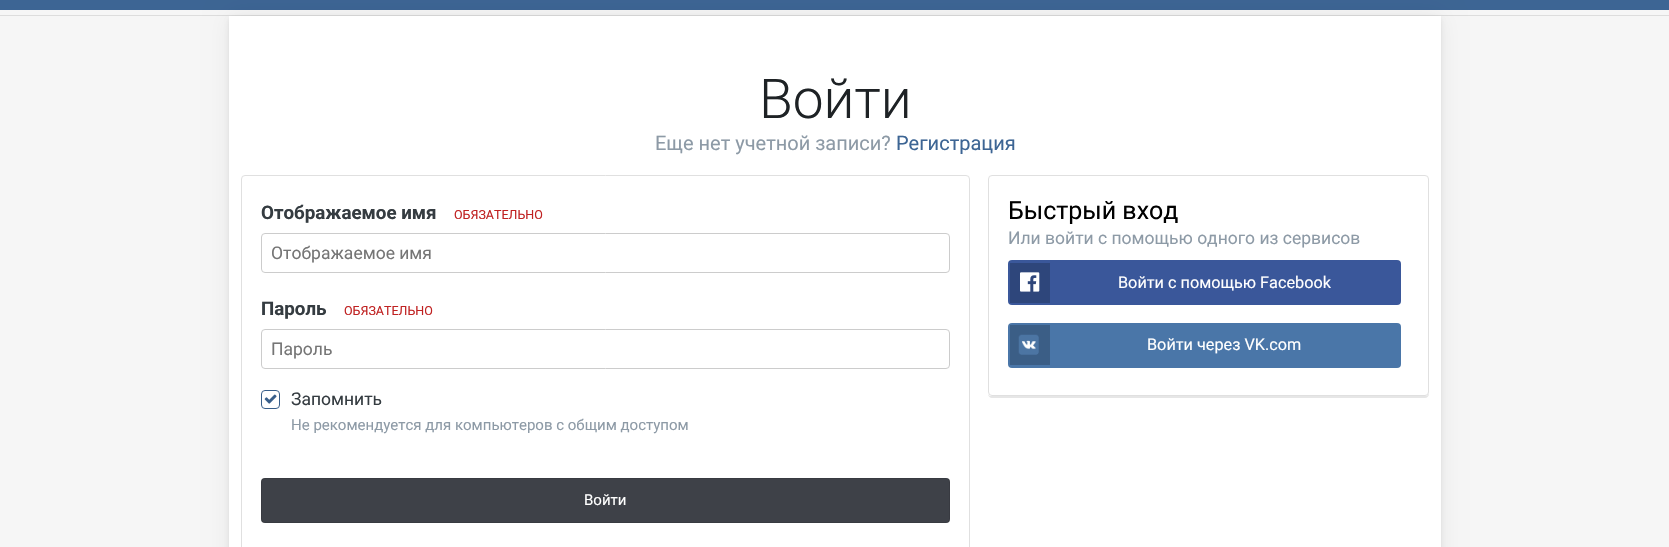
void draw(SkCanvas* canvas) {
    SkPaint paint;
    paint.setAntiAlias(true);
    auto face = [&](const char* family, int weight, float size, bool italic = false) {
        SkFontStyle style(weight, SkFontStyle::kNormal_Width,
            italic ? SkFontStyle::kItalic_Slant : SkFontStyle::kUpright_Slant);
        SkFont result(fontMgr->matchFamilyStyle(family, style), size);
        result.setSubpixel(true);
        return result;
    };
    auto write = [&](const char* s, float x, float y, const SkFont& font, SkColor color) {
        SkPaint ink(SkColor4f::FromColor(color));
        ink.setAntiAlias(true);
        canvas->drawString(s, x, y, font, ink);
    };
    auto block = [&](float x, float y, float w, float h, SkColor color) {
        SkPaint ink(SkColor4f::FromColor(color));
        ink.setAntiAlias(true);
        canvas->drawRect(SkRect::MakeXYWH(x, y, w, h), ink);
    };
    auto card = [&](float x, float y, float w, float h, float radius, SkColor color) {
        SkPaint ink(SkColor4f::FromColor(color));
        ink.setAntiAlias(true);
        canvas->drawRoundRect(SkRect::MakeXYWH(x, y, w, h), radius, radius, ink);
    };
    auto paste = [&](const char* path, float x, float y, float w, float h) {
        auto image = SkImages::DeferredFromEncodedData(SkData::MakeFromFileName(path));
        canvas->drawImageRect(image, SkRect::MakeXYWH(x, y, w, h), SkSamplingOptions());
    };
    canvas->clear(SkColorSetRGB(246, 246, 246));
    block(0, 15, 1669, 1, SkColorSetRGB(221, 221, 221));
    block(0, 0, 1669, 10, SkColorSetRGB(61, 101, 148));
    paint.setColor(SkColorSetARGB(20, 0, 0, 0));
    paint.setMaskFilter(SkMaskFilter::MakeBlur(kNormal_SkBlurStyle, 2));
    canvas->drawRoundRect(SkRect::MakeXYWH(229, 18, 1212, 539), 4, 4, paint);
    paint.setMaskFilter(nullptr);
    paint.setColor(SkColorSetARGB(15, 0, 0, 0));
    paint.setMaskFilter(SkMaskFilter::MakeBlur(kNormal_SkBlurStyle, 12.5f));
    canvas->drawRoundRect(SkRect::MakeXYWH(229, 16, 1212, 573), 4, 4, paint);
    paint.setMaskFilter(nullptr);
    block(229, 16, 1212, 531, SK_ColorWHITE);
    auto kFont1 = face("Roboto", 300, 55);
    write("Войти", 759, 118, kFont1, SkColorSetRGB(30, 34, 37));
    auto kFont2 = face("Roboto", 400, 20);
    write("Еще нет учетной записи?", 655, 150, kFont2, SkColorSetRGB(141, 154, 166));
    write("Регистрация", 896, 150, kFont2, SkColorSetRGB(61, 101, 148));
    paint.setStyle(SkPaint::kStroke_Style);
    paint.setStrokeWidth(1);
    paint.setColor(SkColorSetRGB(224, 224, 224));
    canvas->drawRoundRect(SkRect::MakeXYWH(241.5f, 175.5f, 728, 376), 3.5f, 3.5f, paint);
    auto kFont3 = face("Roboto", 700, 18.75f);
    write("Отображаемое имя", 261, 219, kFont3, SkColorSetRGB(53, 60, 65));
    auto kFont4 = face("Roboto", 400, 12.5f);
    write("ОБЯЗАТЕЛЬНО", 454, 219, kFont4, SkColorSetRGB(192, 34, 34));
    paint.setColor(SkColorSetRGB(204, 204, 204));
    canvas->drawRoundRect(SkRect::MakeXYWH(261.5f, 233.5f, 688, 39), 3.5f, 3.5f, paint);
    auto kFont5 = face("Roboto", 400, 17.5f);
    write("Отображаемое имя", 271, 259, kFont5, SkColorSetRGB(117, 117, 117));
    write("Пароль", 261, 315, kFont3, SkColorSetRGB(53, 60, 65));
    write("ОБЯЗАТЕЛЬНО", 344, 315, kFont4, SkColorSetRGB(192, 34, 34));
    canvas->drawRoundRect(SkRect::MakeXYWH(261.5f, 329.5f, 688, 39), 3.5f, 3.5f, paint);
    write("Пароль", 271, 355, kFont5, SkColorSetRGB(117, 117, 117));
    paint.setColor(SkColorSetRGB(56, 94, 138));
    canvas->drawRoundRect(SkRect::MakeXYWH(261.5f, 390.5f, 18, 18), 3.5f, 3.5f, paint);
    paste("pic1.png", 264, 394, 13, 10);
    write("Запомнить", 291, 405, kFont5, SkColorSetRGB(53, 60, 65));
    auto kFont6 = face("Roboto", 400, 15);
    write("Не рекомендуется для компьютеров с общим доступом", 291, 430, kFont6, SkColorSetRGB(141, 154, 166));
    card(261, 478, 689, 45, 4, SkColorSetRGB(62, 65, 72));
    paint.setColor(SkColorSetARGB(26, 0, 0, 0));
    canvas->drawRoundRect(SkRect::MakeXYWH(261.5f, 478.5f, 688, 44), 3.5f, 3.5f, paint);
    write("Войти", 584, 505, kFont6, SK_ColorWHITE);
    paint.setStyle(SkPaint::kFill_Style);
    paint.setColor(SkColorSetRGB(230, 230, 230));
    canvas->drawPath(SkPathBuilder().moveTo(988, 394).cubicTo(988, 396, 990, 398, 992, 398).lineTo(1425, 398).cubicTo(1427, 398, 1429, 396, 1429, 394).lineTo(1429, 179).lineTo(1429, 392).cubicTo(1429, 395, 1427, 396, 1425, 396).lineTo(991, 396).cubicTo(990, 396, 989, 396, 988, 394).close().detach(), paint);
    paint.setColor(SK_ColorWHITE);
    canvas->drawRoundRect(SkRect::MakeXYWH(988.5f, 175.5f, 440, 220), 3.5f, 3.5f, paint);
    paint.setStyle(SkPaint::kStroke_Style);
    paint.setColor(SkColorSetRGB(224, 224, 224));
    canvas->drawRoundRect(SkRect::MakeXYWH(988.5f, 175.5f, 440, 220), 3.5f, 3.5f, paint);
    auto kFont7 = face("Roboto", 400, 25);
    write("Быстрый вход", 1008, 219, kFont7, SK_ColorBLACK);
    write("Или войти с помощью одного из сервисов", 1008, 244, kFont5, SkColorSetRGB(141, 154, 166));
    card(1008, 260, 393, 45, 4, SkColorSetRGB(58, 87, 154));
    block(1010, 263, 40, 40, SkColorSetRGB(46, 70, 123));
    paste("pic2.png", 1020, 272, 20, 20);
    auto kFont8 = face("Roboto", 400, 16.25f);
    write("Войти с помощью Facebook", 1118, 288, kFont8, SK_ColorWHITE);
    card(1008, 323, 393, 45, 4, SkColorSetRGB(74, 118, 168));
    block(1010, 325, 40, 40, SkColorSetRGB(59, 94, 134));
    paste("pic3.png", 1018, 334, 21, 21);
    write("Войти через VK.com", 1147, 350, kFont8, SK_ColorWHITE);
}
